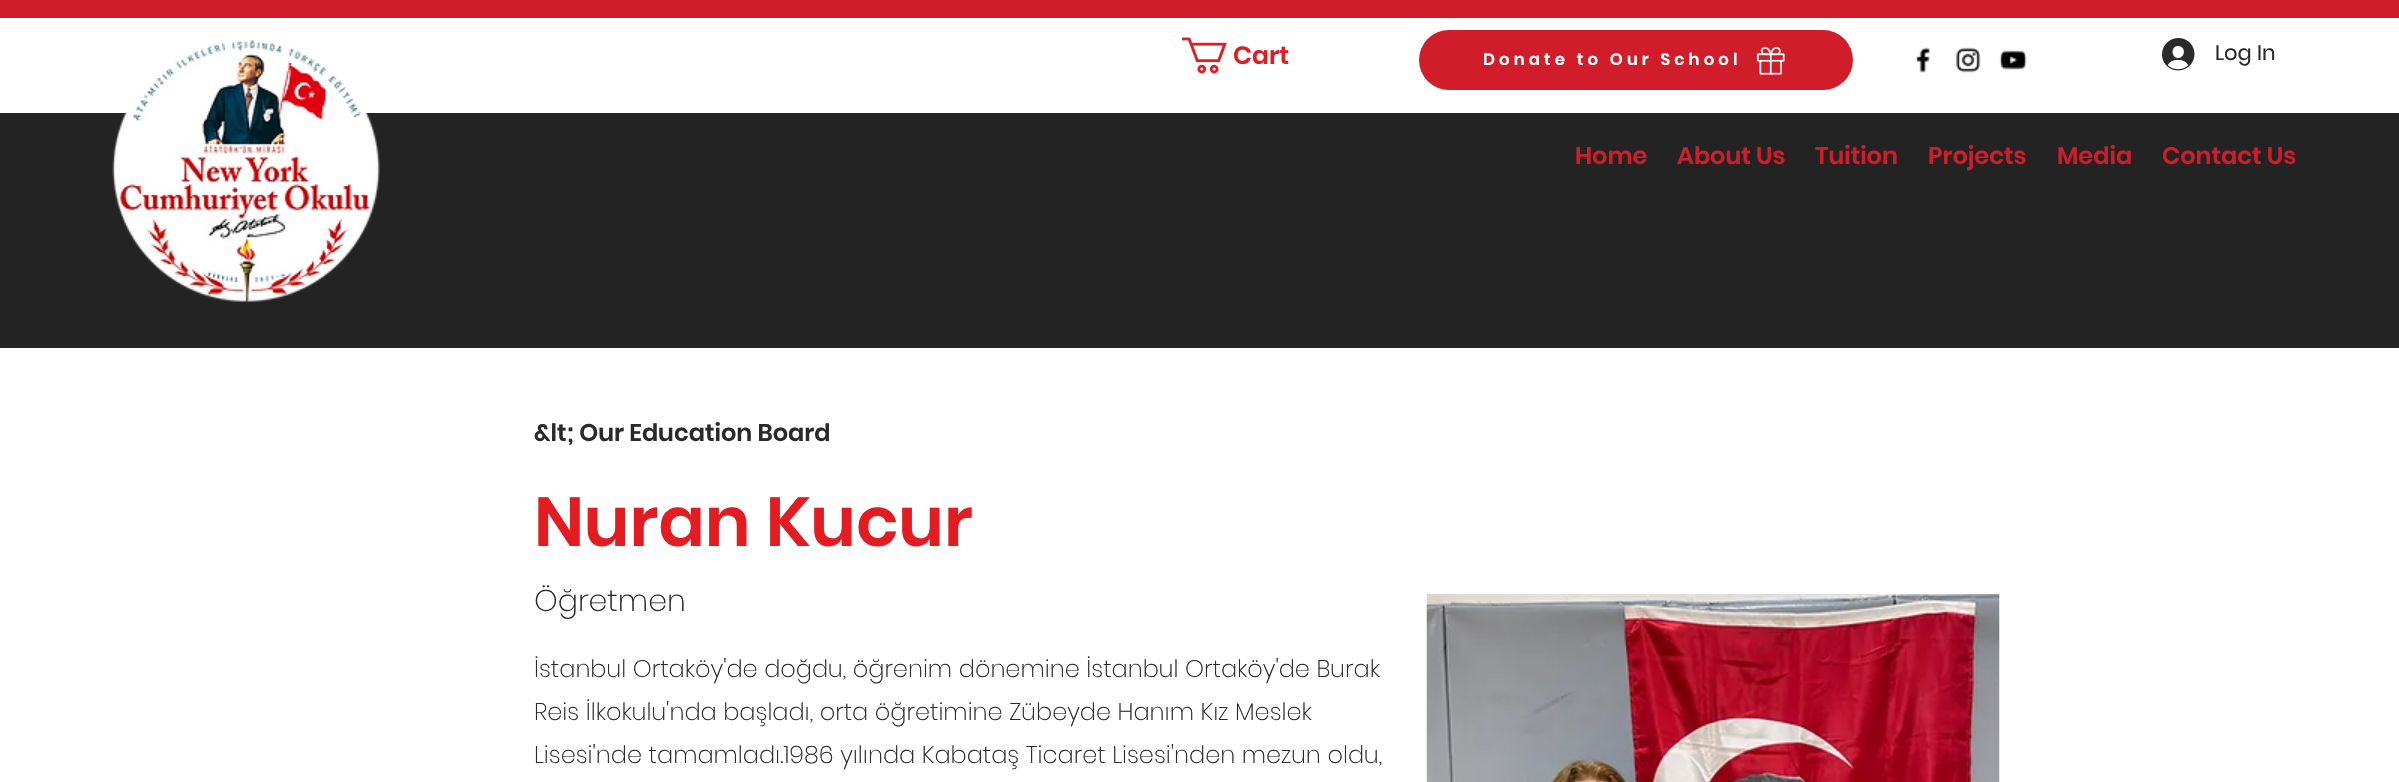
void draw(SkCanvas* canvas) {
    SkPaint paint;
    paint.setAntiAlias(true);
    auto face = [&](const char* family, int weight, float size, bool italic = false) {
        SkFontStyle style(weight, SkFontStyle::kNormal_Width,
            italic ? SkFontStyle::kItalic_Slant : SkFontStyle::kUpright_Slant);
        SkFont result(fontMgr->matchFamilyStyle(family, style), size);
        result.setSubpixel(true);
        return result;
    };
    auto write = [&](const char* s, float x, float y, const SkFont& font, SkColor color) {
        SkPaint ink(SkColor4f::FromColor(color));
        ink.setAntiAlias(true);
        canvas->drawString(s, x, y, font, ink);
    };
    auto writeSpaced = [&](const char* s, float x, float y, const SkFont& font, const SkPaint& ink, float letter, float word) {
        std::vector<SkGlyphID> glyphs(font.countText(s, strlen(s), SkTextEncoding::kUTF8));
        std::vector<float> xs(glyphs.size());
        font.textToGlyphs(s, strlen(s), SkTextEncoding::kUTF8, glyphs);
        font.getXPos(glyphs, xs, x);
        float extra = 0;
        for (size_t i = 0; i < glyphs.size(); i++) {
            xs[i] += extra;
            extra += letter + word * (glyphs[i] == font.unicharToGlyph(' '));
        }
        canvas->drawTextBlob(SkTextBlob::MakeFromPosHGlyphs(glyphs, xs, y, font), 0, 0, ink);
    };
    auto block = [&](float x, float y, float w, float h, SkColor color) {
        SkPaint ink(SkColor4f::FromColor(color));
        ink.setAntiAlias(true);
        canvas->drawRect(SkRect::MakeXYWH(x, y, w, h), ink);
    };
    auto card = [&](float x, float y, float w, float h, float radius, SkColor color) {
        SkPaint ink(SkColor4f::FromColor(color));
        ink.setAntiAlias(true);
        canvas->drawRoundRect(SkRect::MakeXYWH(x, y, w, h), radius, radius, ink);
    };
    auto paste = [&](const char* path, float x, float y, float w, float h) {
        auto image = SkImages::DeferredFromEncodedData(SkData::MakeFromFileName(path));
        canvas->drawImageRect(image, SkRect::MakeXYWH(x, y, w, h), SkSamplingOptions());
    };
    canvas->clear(SK_ColorWHITE);
    block(0, 0, 2399, 18, SkColorSetRGB(209, 29, 42));
    block(0, 113, 2399, 235, SkColorSetRGB(36, 35, 35));
    paste("pic1.png", 112, 39, 268, 263);
    paste("pic2.png", 1182, 37, 45, 37);
    auto kFont1 = face("Poppins", 600, 25);
    write("Cart", 1233, 64, kFont1, SkColorSetRGB(226, 28, 33));
    card(1419, 30, 434, 60, 30, SkColorSetRGB(209, 29, 42));
    auto kFont2 = face("Poppins", 600, 16.5f);
    paint.setColor(SK_ColorWHITE);
    writeSpaced("Donate to Our School", 1483, 65, kFont2, paint, 4.1f, 0);
    paste("pic3.png", 1756, 46, 29, 29);
    paste("pic4.png", 1916, 47, 14, 26);
    paste("pic5.png", 1955, 47, 26, 26);
    paste("pic6.png", 1999, 50, 28, 20);
    paste("pic7.png", 2162, 38, 33, 33);
    auto kFont3 = face("Poppins", 400, 21);
    write("Log In", 2215, 60, kFont3, SkColorSetRGB(42, 42, 42));
    auto kFont4 = face("Poppins", 600, 24);
    write("Home", 1575, 164, kFont4, SkColorSetRGB(209, 29, 42));
    write("About Us", 1677, 164, kFont4, SkColorSetRGB(209, 29, 42));
    write("Tuition", 1815, 164, kFont4, SkColorSetRGB(209, 29, 42));
    write("Projects", 1928, 164, kFont4, SkColorSetRGB(209, 29, 42));
    write("Media", 2057, 164, kFont4, SkColorSetRGB(209, 29, 42));
    write("Contact Us", 2162, 164, kFont4, SkColorSetRGB(209, 29, 42));
    write("&lt; Our Education Board", 534, 441, kFont4, SkColorSetRGB(42, 42, 42));
    auto kFont5 = face("Poppins", 600, 69);
    write("Nuran Kucur", 534, 546, kFont5, SkColorSetRGB(226, 28, 33));
    auto kFont6 = face("Poppins", 200, 30);
    write("Öğretmen", 534, 611, kFont6, SkColorSetRGB(42, 42, 42));
    auto kFont7 = face("Poppins", 200, 24);
    write("İstanbul Ortaköy'de doğdu, öğrenim dönemine İstanbul Ortaköy'de Burak", 534, 677, kFont7, SkColorSetRGB(42, 42, 42));
    write("Reis İlkokulu'nda başladı, orta öğretimine Zübeyde Hanım Kız Meslek", 534, 720, kFont7, SkColorSetRGB(42, 42, 42));
    write("Lisesi'nde tamamladı.1986 yılında Kabataş Ticaret Lisesi'nden mezun oldu,", 534, 763, kFont7, SkColorSetRGB(42, 42, 42));
    paste("pic8.png", 1426, 594, 574, 188);
}
